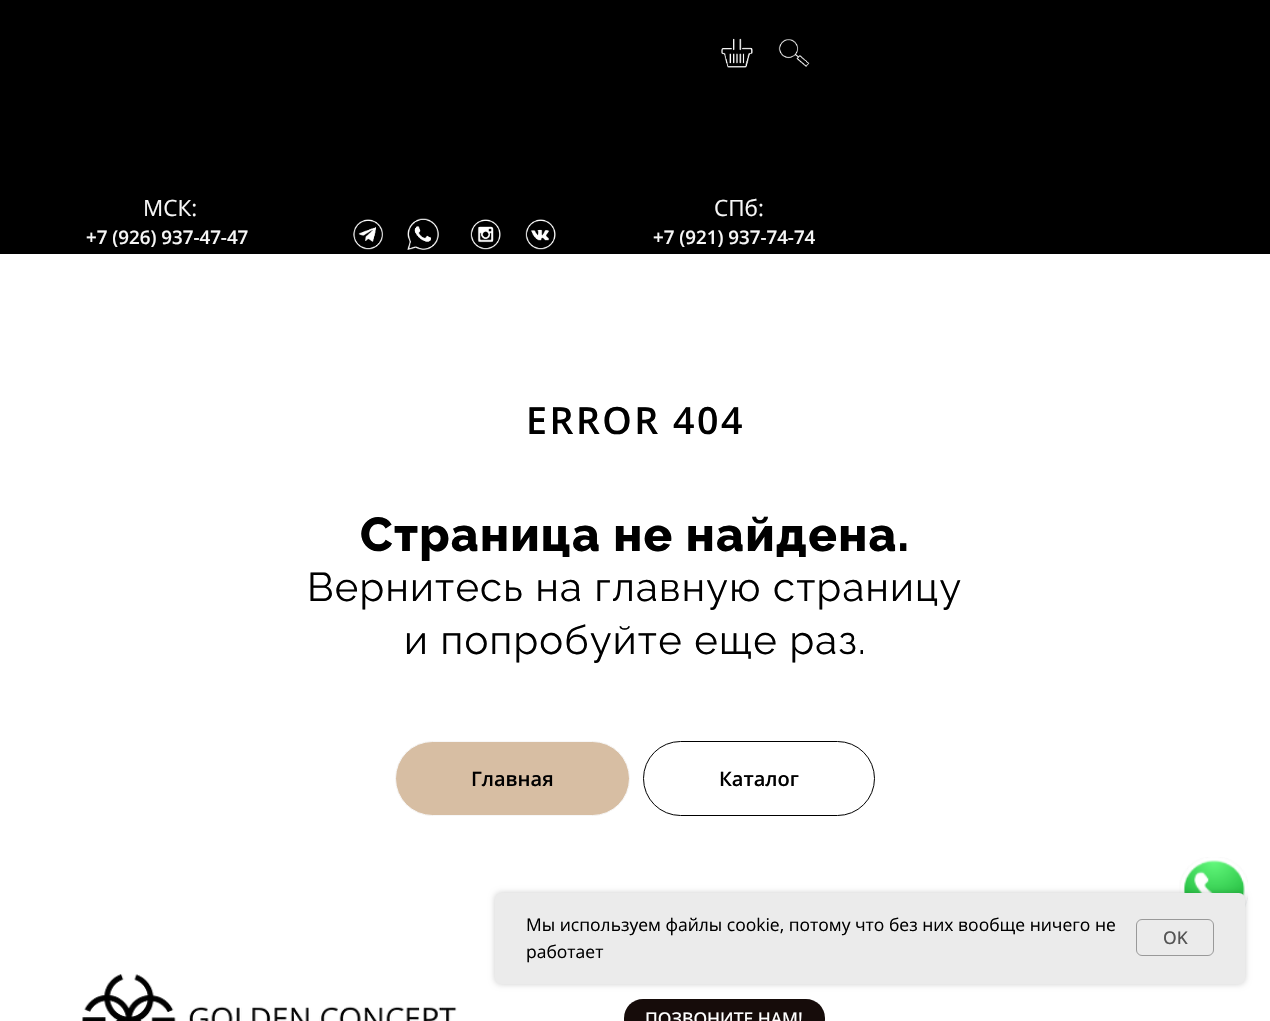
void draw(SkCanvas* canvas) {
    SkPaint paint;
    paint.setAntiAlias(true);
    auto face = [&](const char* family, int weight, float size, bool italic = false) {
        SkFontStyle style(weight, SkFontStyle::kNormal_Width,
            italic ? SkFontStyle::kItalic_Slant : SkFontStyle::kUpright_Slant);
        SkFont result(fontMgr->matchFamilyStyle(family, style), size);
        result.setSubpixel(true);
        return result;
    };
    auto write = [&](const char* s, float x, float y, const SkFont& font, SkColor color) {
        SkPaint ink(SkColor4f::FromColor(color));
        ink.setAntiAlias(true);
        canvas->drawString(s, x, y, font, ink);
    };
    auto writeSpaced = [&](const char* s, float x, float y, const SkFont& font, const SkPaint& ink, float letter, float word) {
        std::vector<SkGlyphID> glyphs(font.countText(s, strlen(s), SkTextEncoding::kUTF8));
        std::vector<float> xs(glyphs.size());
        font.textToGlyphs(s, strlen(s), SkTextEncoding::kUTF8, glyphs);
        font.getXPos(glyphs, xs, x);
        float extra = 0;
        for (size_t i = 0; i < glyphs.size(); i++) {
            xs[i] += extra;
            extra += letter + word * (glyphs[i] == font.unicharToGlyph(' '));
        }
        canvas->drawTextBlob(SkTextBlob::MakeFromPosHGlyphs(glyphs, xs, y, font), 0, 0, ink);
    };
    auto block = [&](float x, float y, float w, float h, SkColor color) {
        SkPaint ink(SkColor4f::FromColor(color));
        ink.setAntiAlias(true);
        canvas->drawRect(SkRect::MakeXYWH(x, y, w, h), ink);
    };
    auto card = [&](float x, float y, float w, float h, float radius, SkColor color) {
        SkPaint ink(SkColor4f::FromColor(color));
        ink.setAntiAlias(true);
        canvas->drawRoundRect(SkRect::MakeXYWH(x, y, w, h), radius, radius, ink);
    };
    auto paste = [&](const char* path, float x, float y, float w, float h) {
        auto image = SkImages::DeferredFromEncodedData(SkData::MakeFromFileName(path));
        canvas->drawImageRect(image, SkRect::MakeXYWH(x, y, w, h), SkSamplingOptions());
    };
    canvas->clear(SK_ColorWHITE);
    block(0, 0, 1270, 254, SK_ColorBLACK);
    paste("pic1.png", 721, 38, 32, 30);
    paste("pic2.png", 778, 39, 32, 28);
    auto kFont1 = face("Open Sans", 400, 22.5f);
    write("МСК:", 143, 216, kFont1, SkColorSetRGB(247, 247, 247));
    write("СПб:", 714, 216, kFont1, SkColorSetRGB(247, 247, 247));
    auto kFont2 = face("Open Sans", 600, 18.75f);
    write("+7 (926) 937-47-47", 86, 244, kFont2, SkColorSetRGB(247, 247, 247));
    paste("pic3.png", 353, 219, 30, 31);
    paste("pic4.png", 407, 218, 32, 32);
    paste("pic5.png", 470, 219, 31, 31);
    paste("pic6.png", 525, 219, 31, 31);
    write("+7 (921) 937-74-74", 653, 244, kFont2, SkColorSetRGB(247, 247, 247));
    auto kFont3 = face("Open Sans", 600, 37.5f);
    paint.setColor(SK_ColorBLACK);
    writeSpaced("ERROR 404", 526, 434, kFont3, paint, 2.5f, 0);
    auto kFont4 = face("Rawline", 800, 47.5f);
    writeSpaced("Страница не найдена.", 360, 551, kFont4, paint, 1.25f, 0);
    auto kFont5 = face("Rawline", 400, 40);
    writeSpaced("Вернитесь на главную страницу", 307, 601, kFont5, paint, 1.25f, 0);
    writeSpaced("и попробуйте еще раз.", 404, 654, kFont5, paint, 1.25f, 0);
    paint.setColor(SkColorSetRGB(215, 190, 163));
    canvas->drawRoundRect(SkRect::MakeXYWH(395.5f, 741.5f, 234, 74), 37, 37, paint);
    paint.setStyle(SkPaint::kStroke_Style);
    paint.setStrokeWidth(1);
    paint.setColor(SkColorSetRGB(247, 247, 247));
    canvas->drawRoundRect(SkRect::MakeXYWH(395.5f, 741.5f, 234, 74), 37, 37, paint);
    auto kFont6 = face("Open Sans", 600, 20);
    write("Главная", 471, 786, kFont6, SK_ColorBLACK);
    paint.setColor(SK_ColorBLACK);
    canvas->drawRoundRect(SkRect::MakeXYWH(643.5f, 741.5f, 231, 74), 37, 37, paint);
    write("Каталог", 719, 786, kFont6, SK_ColorBLACK);
    paste("pic8.png", 1179, 857, 69, 51);
    paint.setStyle(SkPaint::kFill_Style);
    paint.setColor(SkColorSetARGB(51, 0, 0, 0));
    paint.setMaskFilter(SkMaskFilter::MakeBlur(kNormal_SkBlurStyle, 3));
    canvas->drawRoundRect(SkRect::MakeXYWH(495, 893, 750, 91), 6, 6, paint);
    paint.setMaskFilter(nullptr);
    card(495, 893, 750, 91, 6, SkColorSetRGB(235, 235, 235));
    auto kFont7 = face("Open Sans", 400, 17.5f);
    write("Мы используем файлы cookie, потому что без них вообще ничего не", 526, 931, kFont7, SK_ColorBLACK);
    write("работает", 526, 958, kFont7, SK_ColorBLACK);
    paint.setStyle(SkPaint::kStroke_Style);
    paint.setColor(SkColorSetRGB(153, 153, 153));
    canvas->drawRoundRect(SkRect::MakeXYWH(1136.5f, 919.5f, 77, 36), 5.5f, 5.5f, paint);
    auto kFont8 = face("Open Sans", 500, 17.5f);
    write("OK", 1163, 944, kFont8, SkColorSetRGB(85, 85, 85));
    paste("pic7.png", 82, 974, 375, 47);
    card(624, 999, 201, 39, 19, SkColorSetRGB(22, 12, 10));
    write("ПОЗВОНИТЕ НАМ!", 645, 1025, kFont8, SK_ColorWHITE);
}
